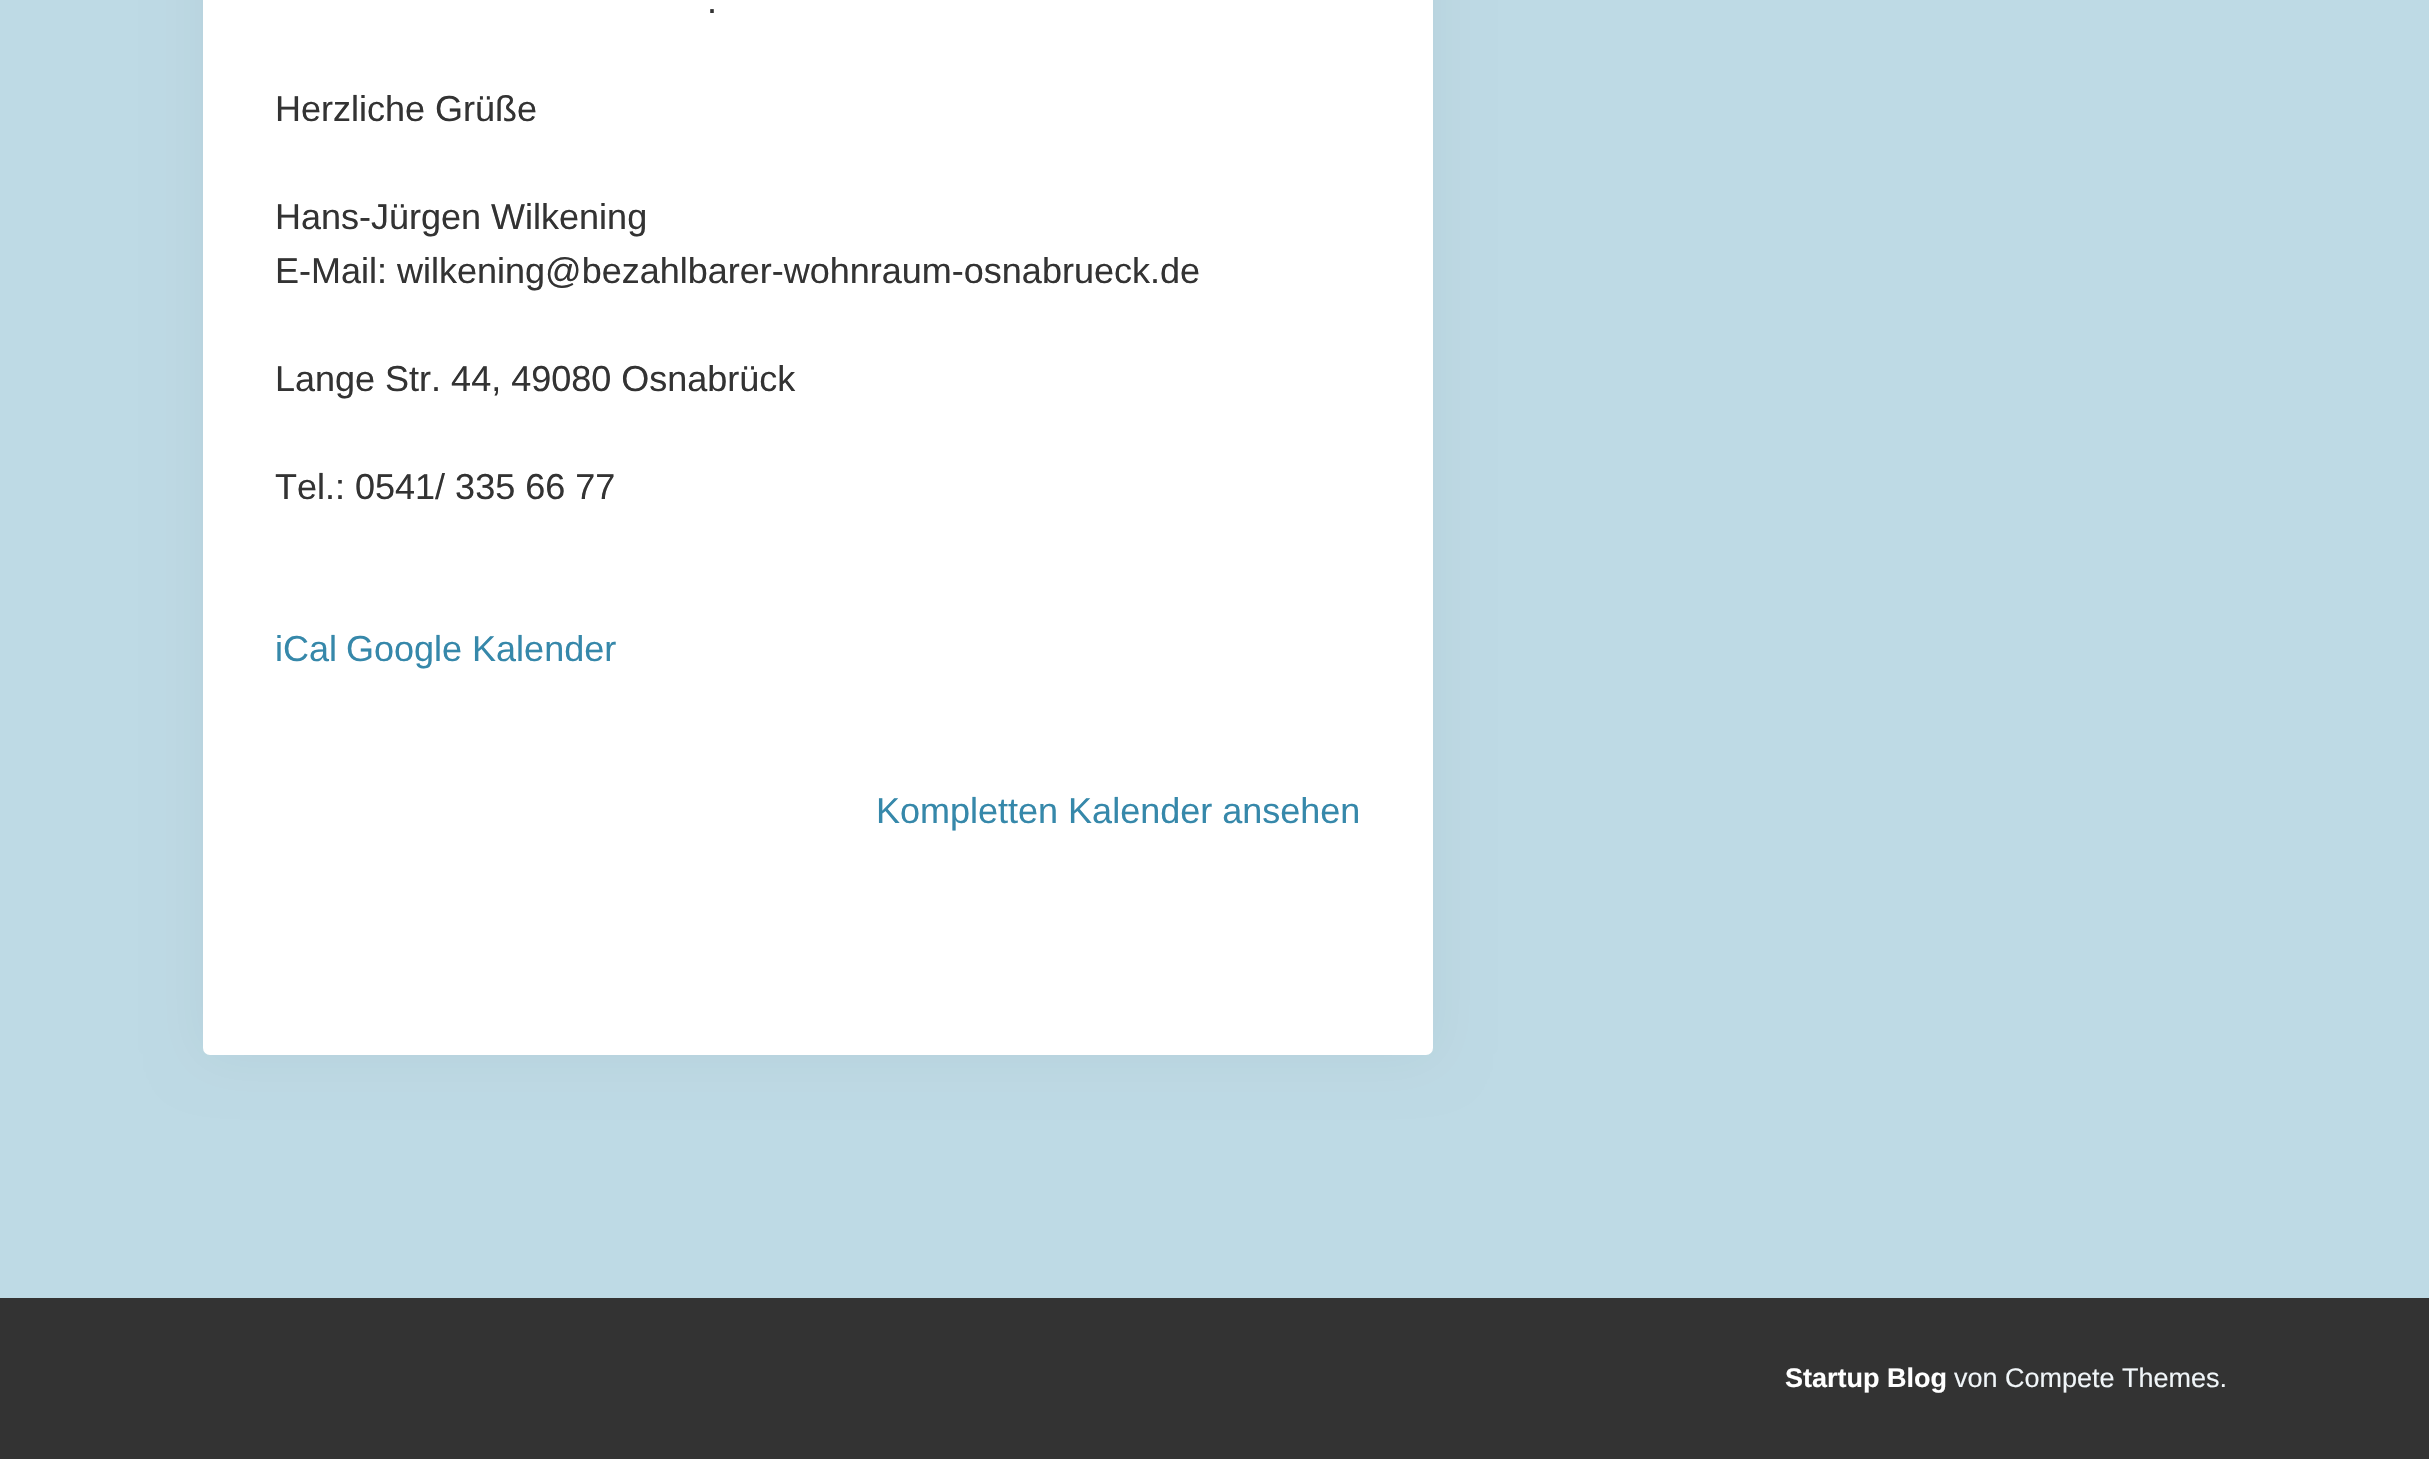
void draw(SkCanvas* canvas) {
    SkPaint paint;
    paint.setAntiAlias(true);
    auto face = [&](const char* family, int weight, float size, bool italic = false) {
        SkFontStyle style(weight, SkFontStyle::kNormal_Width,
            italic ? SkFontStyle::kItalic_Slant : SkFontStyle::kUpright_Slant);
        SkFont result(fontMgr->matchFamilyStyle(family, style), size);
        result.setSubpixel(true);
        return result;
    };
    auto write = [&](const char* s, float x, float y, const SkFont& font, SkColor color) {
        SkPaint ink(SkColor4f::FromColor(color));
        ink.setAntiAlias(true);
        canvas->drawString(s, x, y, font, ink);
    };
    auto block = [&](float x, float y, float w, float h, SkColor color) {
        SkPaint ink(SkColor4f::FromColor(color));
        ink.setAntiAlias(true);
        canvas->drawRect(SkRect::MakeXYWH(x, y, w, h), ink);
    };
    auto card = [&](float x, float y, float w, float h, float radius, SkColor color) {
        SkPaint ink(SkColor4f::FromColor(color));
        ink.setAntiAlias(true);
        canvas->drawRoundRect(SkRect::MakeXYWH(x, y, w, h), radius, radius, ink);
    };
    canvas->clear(SkColorSetRGB(190, 218, 229));
    paint.setColor(SkColorSetARGB(13, 0, 0, 0));
    paint.setMaskFilter(SkMaskFilter::MakeBlur(kNormal_SkBlurStyle, 27));
    canvas->drawRoundRect(SkRect::MakeXYWH(203, -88, 1230, 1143), 7, 7, paint);
    paint.setMaskFilter(nullptr);
    card(203, -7, 1230, 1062, 7, SK_ColorWHITE);
    auto kFont1 = face("Liberation Sans", 400, 36);
    write(".", 707, 13, kFont1, SkColorSetRGB(51, 51, 51));
    write("Herzliche Grüße", 275, 121, kFont1, SkColorSetRGB(51, 51, 51));
    write("Hans-Jürgen Wilkening", 275, 229, kFont1, SkColorSetRGB(51, 51, 51));
    write("E-Mail: wilkening@bezahlbarer-wohnraum-osnabrueck.de", 275, 283, kFont1, SkColorSetRGB(51, 51, 51));
    write("Lange Str. 44, 49080 Osnabrück", 275, 391, kFont1, SkColorSetRGB(51, 51, 51));
    write("Tel.: 0541/ 335 66 77", 275, 499, kFont1, SkColorSetRGB(51, 51, 51));
    write("iCal", 275, 661, kFont1, SkColorSetRGB(54, 136, 170));
    write("Google Kalender", 346, 661, kFont1, SkColorSetRGB(54, 136, 170));
    write("Kompletten Kalender ansehen", 876, 823, kFont1, SkColorSetRGB(54, 136, 170));
    block(0, 1298, 2429, 161, SkColorSetRGB(51, 51, 51));
    auto kFont2 = face("Liberation Sans", 700, 27);
    write("Startup Blog", 1785, 1387, kFont2, SK_ColorWHITE);
    auto kFont3 = face("Liberation Sans", 400, 27);
    write("von Compete Themes.", 1954, 1387, kFont3, SkColorSetRGB(240, 245, 248));
}
